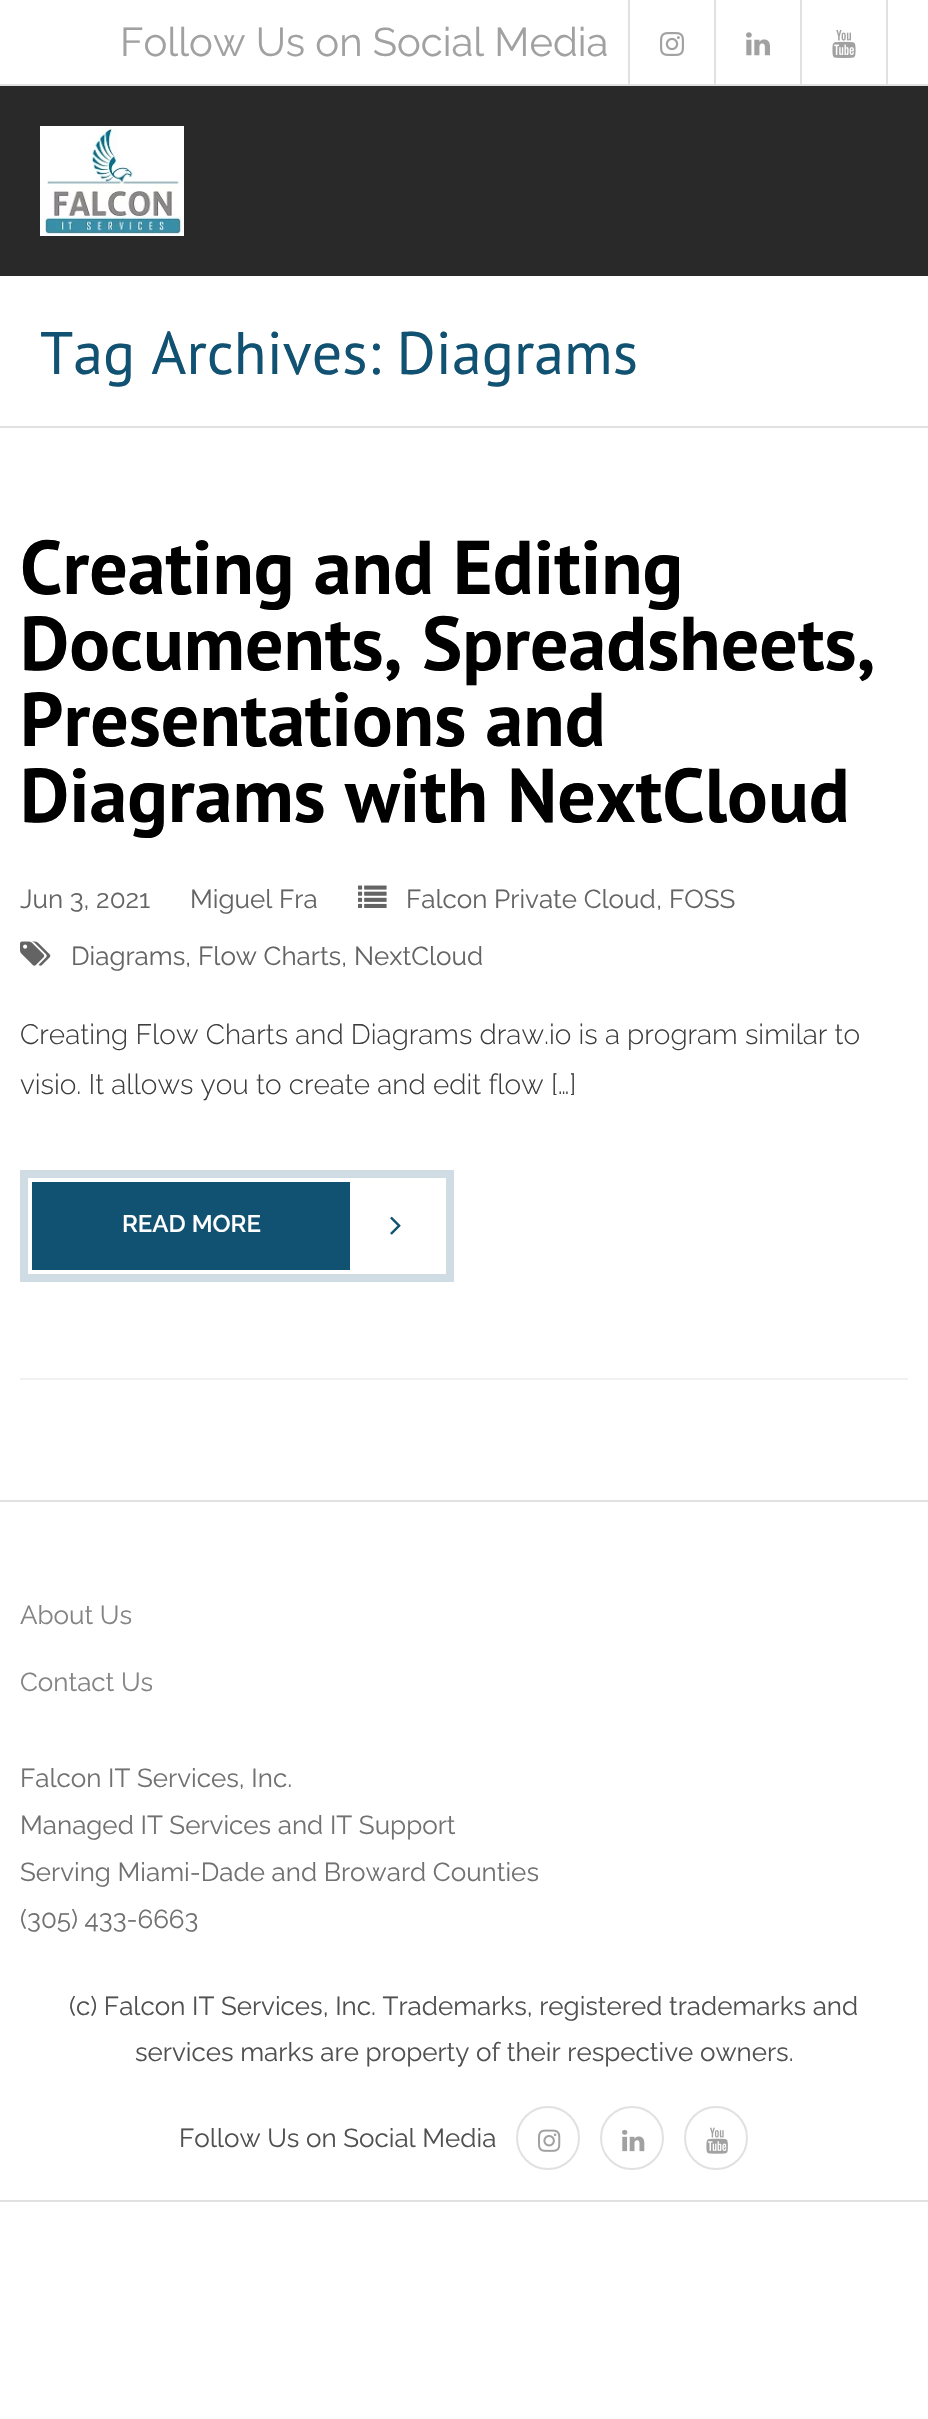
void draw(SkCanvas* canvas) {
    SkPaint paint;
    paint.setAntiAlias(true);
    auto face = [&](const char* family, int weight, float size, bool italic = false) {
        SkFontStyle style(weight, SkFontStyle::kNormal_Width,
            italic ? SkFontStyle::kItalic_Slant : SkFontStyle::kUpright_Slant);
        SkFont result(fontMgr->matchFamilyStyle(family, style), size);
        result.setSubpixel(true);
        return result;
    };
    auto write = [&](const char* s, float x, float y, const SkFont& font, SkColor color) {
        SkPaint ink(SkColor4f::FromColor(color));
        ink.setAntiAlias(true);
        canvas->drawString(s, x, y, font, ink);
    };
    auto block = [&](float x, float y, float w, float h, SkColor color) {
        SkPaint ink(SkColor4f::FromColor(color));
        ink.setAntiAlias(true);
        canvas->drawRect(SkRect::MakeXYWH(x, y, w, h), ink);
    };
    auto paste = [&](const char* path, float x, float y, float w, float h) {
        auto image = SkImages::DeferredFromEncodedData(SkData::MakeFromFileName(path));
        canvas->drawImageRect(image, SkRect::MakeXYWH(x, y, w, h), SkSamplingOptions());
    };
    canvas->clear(SK_ColorWHITE);
    block(0, 84, 928, 2, SkColorSetRGB(225, 225, 225));
    auto kFont1 = face("Raleway", 400, 40);
    write("Follow Us on Social Media", 120, 56, kFont1, SkColorSetRGB(161, 161, 161));
    block(628, 0, 2, 84, SkColorSetRGB(225, 225, 225));
    paste("pic1.png", 660, 32, 24, 24);
    block(714, 0, 2, 84, SkColorSetRGB(225, 225, 225));
    paste("pic2.png", 746, 32, 24, 24);
    block(886, 0, 2, 84, SkColorSetRGB(225, 225, 225));
    block(800, 0, 2, 84, SkColorSetRGB(225, 225, 225));
    paste("pic3.png", 832, 30, 24, 28);
    block(0, 86, 928, 190, SkColorSetRGB(41, 41, 41));
    paste("pic4.png", 40, 126, 144, 110);
    block(0, 426, 928, 2, SkColorSetRGB(225, 225, 225));
    auto kFont2 = face("PT Sans", 400, 60);
    write("Tag Archives: Diagrams", 40, 374, kFont2, SkColorSetRGB(17, 81, 114));
    block(20, 1378, 888, 2, SkColorSetRGB(241, 241, 241));
    auto kFont3 = face("PT Sans", 700, 76);
    write("Creating and Editing", 20, 594, kFont3, SK_ColorBLACK);
    write("Documents, Spreadsheets,", 20, 670, kFont3, SK_ColorBLACK);
    write("Presentations and", 20, 746, kFont3, SK_ColorBLACK);
    write("Diagrams with NextCloud", 20, 822, kFont3, SK_ColorBLACK);
    auto kFont4 = face("Raleway", 400, 26);
    write("Jun 3, 2021", 20, 908, kFont4, SkColorSetRGB(100, 100, 100));
    write("Miguel Fra", 190, 908, kFont4, SkColorSetRGB(100, 100, 100));
    paste("pic5.png", 358, 885, 29, 23);
    write("Falcon Private Cloud", 406, 908, kFont4, SkColorSetRGB(100, 100, 100));
    auto kFont5 = face("Raleway", 300, 26);
    write(",", 656, 908, kFont5, SkColorSetRGB(61, 61, 61));
    write("FOSS", 669, 908, kFont4, SkColorSetRGB(100, 100, 100));
    paste("pic6.png", 20, 941, 31, 25);
    write("Diagrams", 71, 965, kFont4, SkColorSetRGB(100, 100, 100));
    write(",", 185, 965, kFont5, SkColorSetRGB(61, 61, 61));
    write("Flow Charts", 198, 965, kFont4, SkColorSetRGB(100, 100, 100));
    write(",", 341, 965, kFont5, SkColorSetRGB(61, 61, 61));
    write("NextCloud", 354, 965, kFont4, SkColorSetRGB(100, 100, 100));
    auto kFont6 = face("Raleway", 300, 28);
    write("Creating Flow Charts and Diagrams draw.io is a program similar to", 20, 1044, kFont6, SkColorSetRGB(61, 61, 61));
    write("visio. It allows you to create and edit flow […]", 20, 1094, kFont6, SkColorSetRGB(61, 61, 61));
    paint.setStyle(SkPaint::kStroke_Style);
    paint.setStrokeWidth(8);
    paint.setColor(SkColorSetRGB(207, 220, 227));
    canvas->drawRect(SkRect::MakeXYWH(24, 1174, 426, 104), paint);
    block(32, 1182, 318, 88, SkColorSetRGB(17, 81, 114));
    auto kFont7 = face("Raleway", 600, 24);
    write("READ MORE", 122, 1232, kFont7, SK_ColorWHITE);
    paste("pic7.png", 390, 1216, 11, 19);
    block(0, 1500, 928, 2, SkColorSetRGB(225, 225, 225));
    block(0, 2200, 928, 2, SkColorSetRGB(225, 225, 225));
    write("About Us", 20, 1624, kFont4, SkColorSetRGB(132, 132, 132));
    write("Contact Us", 20, 1691, kFont4, SkColorSetRGB(132, 132, 132));
    write("Falcon IT Services, Inc.", 20, 1787, kFont4, SkColorSetRGB(113, 113, 113));
    write("Managed IT Services and IT Support", 20, 1834, kFont4, SkColorSetRGB(113, 113, 113));
    write("Serving Miami-Dade and Broward Counties", 20, 1881, kFont4, SkColorSetRGB(113, 113, 113));
    write("(305) 433-6663", 20, 1928, kFont4, SkColorSetRGB(113, 113, 113));
    write("(c) Falcon IT Services, Inc. Trademarks, registered trademarks and", 69, 2015, kFont4, SkColorSetRGB(80, 80, 80));
    write("services marks are property of their respective owners.", 135, 2061, kFont4, SkColorSetRGB(80, 80, 80));
    write("Follow Us on Social Media", 179, 2147, kFont4, SkColorSetRGB(80, 80, 80));
    paint.setStrokeWidth(2);
    paint.setColor(SkColorSetRGB(225, 225, 225));
    canvas->drawCircle(548, 2138, 31, paint);
    paste("pic8.png", 538, 2129, 23, 23);
    canvas->drawCircle(632, 2138, 31, paint);
    paste("pic9.png", 622, 2129, 23, 23);
    canvas->drawCircle(716, 2138, 31, paint);
    paste("pic10.png", 706, 2127, 22, 27);
}
